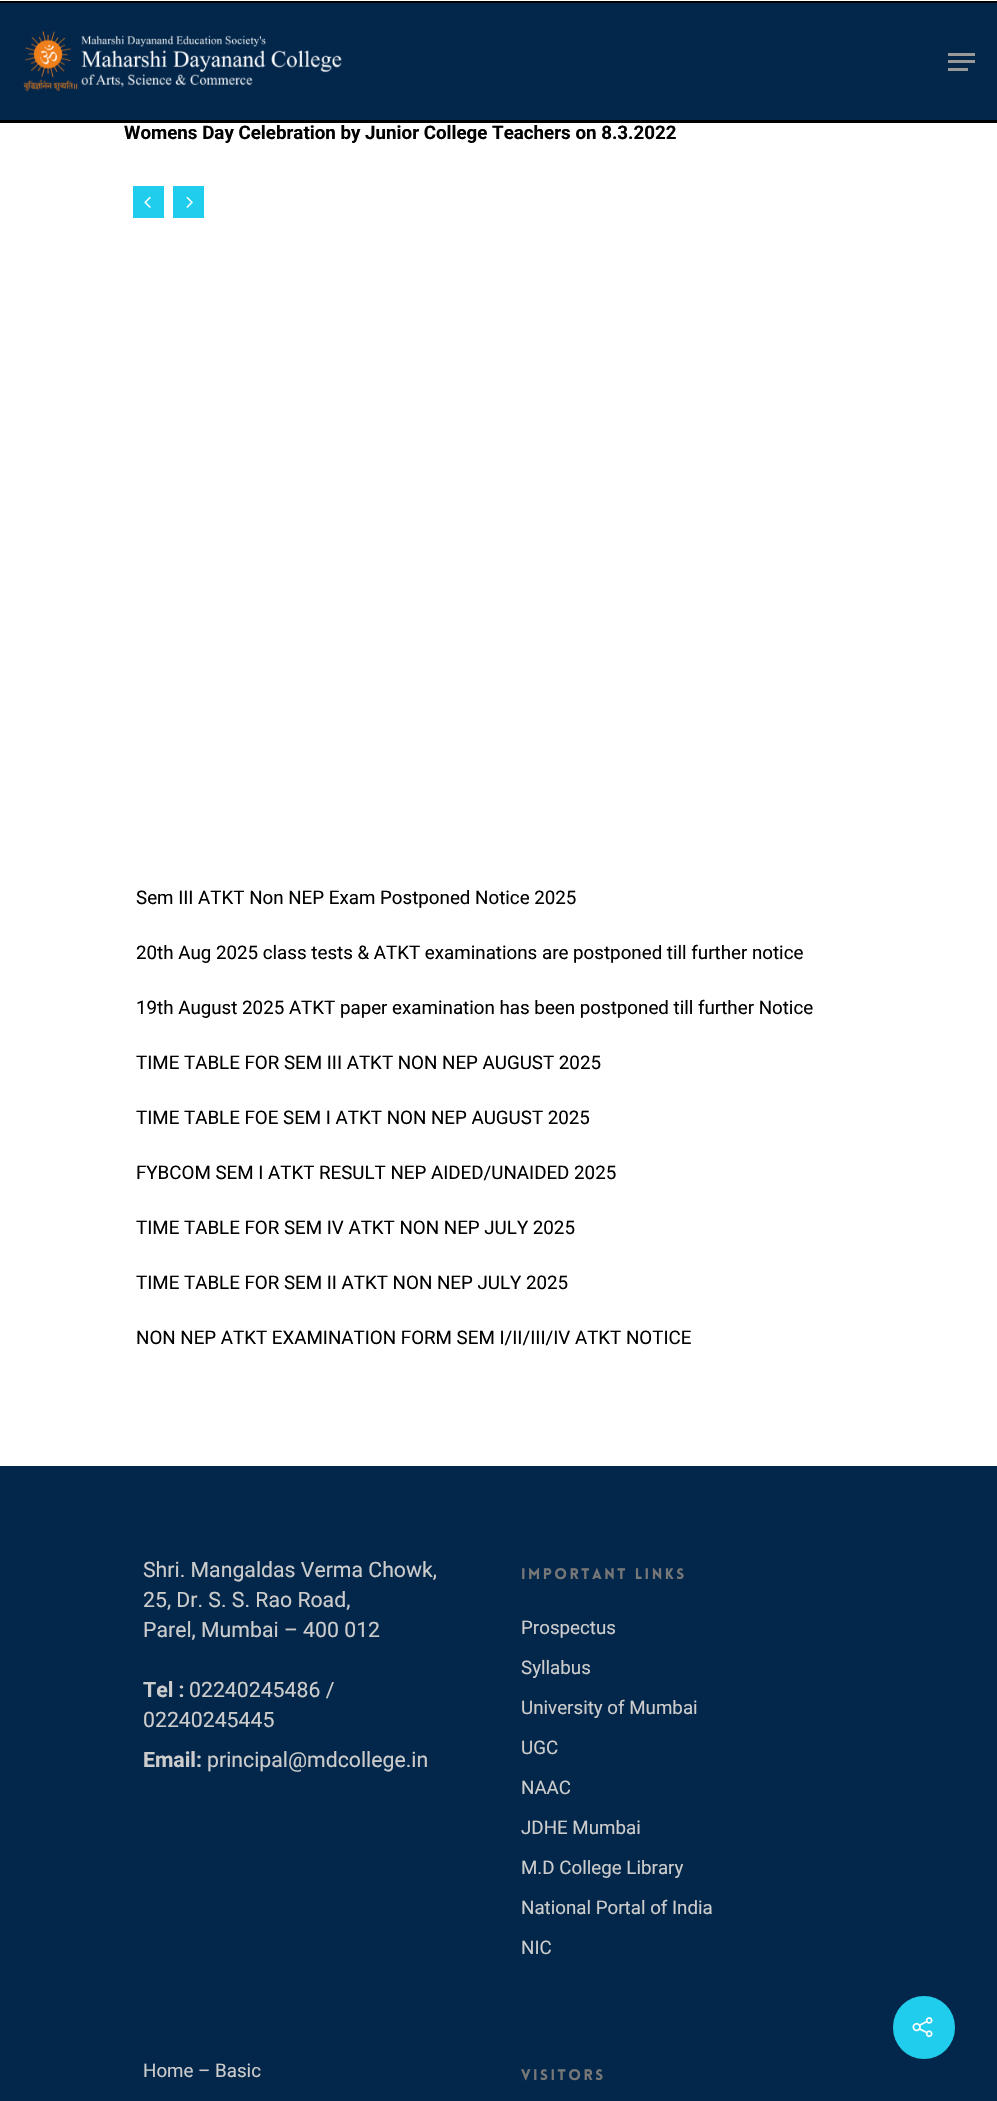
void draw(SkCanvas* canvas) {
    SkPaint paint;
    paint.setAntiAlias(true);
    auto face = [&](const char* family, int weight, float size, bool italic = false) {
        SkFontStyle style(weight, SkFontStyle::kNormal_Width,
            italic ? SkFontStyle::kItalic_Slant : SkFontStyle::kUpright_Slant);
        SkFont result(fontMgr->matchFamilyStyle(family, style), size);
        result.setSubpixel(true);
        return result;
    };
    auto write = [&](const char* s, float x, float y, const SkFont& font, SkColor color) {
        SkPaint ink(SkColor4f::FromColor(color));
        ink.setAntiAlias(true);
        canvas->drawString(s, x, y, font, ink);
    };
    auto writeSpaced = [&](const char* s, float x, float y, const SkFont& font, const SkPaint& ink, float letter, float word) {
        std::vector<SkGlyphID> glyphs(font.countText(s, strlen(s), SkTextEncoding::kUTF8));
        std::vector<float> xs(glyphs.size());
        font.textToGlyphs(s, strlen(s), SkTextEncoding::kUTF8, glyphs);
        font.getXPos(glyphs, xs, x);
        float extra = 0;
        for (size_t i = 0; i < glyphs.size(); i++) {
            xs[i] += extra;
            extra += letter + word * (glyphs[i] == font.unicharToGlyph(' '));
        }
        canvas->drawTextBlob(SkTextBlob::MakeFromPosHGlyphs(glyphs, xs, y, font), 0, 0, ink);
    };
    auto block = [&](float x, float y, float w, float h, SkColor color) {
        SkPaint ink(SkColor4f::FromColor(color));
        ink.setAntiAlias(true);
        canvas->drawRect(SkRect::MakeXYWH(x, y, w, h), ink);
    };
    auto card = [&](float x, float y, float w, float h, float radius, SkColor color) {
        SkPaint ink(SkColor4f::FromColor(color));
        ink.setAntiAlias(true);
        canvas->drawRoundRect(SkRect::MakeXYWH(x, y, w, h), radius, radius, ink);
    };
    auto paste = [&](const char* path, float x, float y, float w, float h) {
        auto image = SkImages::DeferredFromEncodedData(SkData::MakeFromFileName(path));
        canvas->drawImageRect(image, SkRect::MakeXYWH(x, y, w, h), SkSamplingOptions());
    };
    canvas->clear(SK_ColorWHITE);
    block(0, 3, 997, 117, SkColorSetRGB(3, 39, 75));
    block(0, 1, 997, 2, SK_ColorBLACK);
    block(0, 120, 997, 3, SK_ColorBLACK);
    paste("pic1.png", 23, 31, 319, 61);
    block(948, 53, 27, 3, SkColorSetRGB(153, 153, 153));
    block(948, 68, 20, 3, SkColorSetRGB(153, 153, 153));
    block(948, 60, 27, 3, SkColorSetRGB(153, 153, 153));
    auto kFont1 = face("Roboto", 700, 18.75f);
    write("Womens Day Celebration by Junior College Teachers on 8.3.2022", 124, 139, kFont1, SK_ColorBLACK);
    block(133, 186, 31, 32, SkColorSetRGB(33, 205, 236));
    paste("pic2.png", 144, 196, 7, 12);
    block(173, 186, 31, 32, SkColorSetRGB(33, 205, 236));
    paste("pic3.png", 186, 196, 7, 12);
    auto kFont2 = face("Roboto", 400, 18.75f);
    write("Sem III ATKT Non NEP Exam Postponed Notice 2025", 136, 904, kFont2, SK_ColorBLACK);
    write("20th Aug 2025 class tests & ATKT examinations are postponed till further notice", 136, 959, kFont2, SK_ColorBLACK);
    write("19th August 2025 ATKT paper examination has been postponed till further Notice", 136, 1014, kFont2, SK_ColorBLACK);
    write("TIME TABLE FOR SEM III ATKT NON NEP AUGUST 2025", 136, 1069, kFont2, SK_ColorBLACK);
    write("TIME TABLE FOE SEM I ATKT NON NEP AUGUST 2025", 136, 1124, kFont2, SK_ColorBLACK);
    write("FYBCOM SEM I ATKT RESULT NEP AIDED/UNAIDED 2025", 136, 1179, kFont2, SK_ColorBLACK);
    write("TIME TABLE FOR SEM IV ATKT NON NEP JULY 2025", 136, 1234, kFont2, SK_ColorBLACK);
    write("TIME TABLE FOR SEM II ATKT NON NEP JULY 2025", 136, 1289, kFont2, SK_ColorBLACK);
    write("NON NEP ATKT EXAMINATION FORM SEM I/II/III/IV ATKT NOTICE", 136, 1344, kFont2, SK_ColorBLACK);
    block(0, 1466, 997, 635, SkColorSetRGB(3, 39, 75));
    auto kFont3 = face("Roboto", 400, 21.25f);
    write("Shri. Mangaldas Verma Chowk,", 143, 1577, kFont3, SkColorSetRGB(204, 204, 204));
    write("25, Dr. S. S. Rao Road,", 143, 1607, kFont3, SkColorSetRGB(204, 204, 204));
    write("Parel, Mumbai – 400 012", 143, 1637, kFont3, SkColorSetRGB(204, 204, 204));
    auto kFont4 = face("Roboto", 700, 21.25f);
    write("Tel :", 143, 1697, kFont4, SkColorSetRGB(204, 204, 204));
    write("02240245486 /", 189, 1697, kFont3, SkColorSetRGB(204, 204, 204));
    write("02240245445", 143, 1727, kFont3, SkColorSetRGB(204, 204, 204));
    write("Email:", 143, 1767, kFont4, SkColorSetRGB(204, 204, 204));
    write("principal@mdcollege.in", 207, 1767, kFont3, SkColorSetRGB(204, 204, 204));
    auto kFont5 = face("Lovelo", 900, 15);
    paint.setColor(SkColorSetRGB(119, 119, 119));
    writeSpaced("IMPORTANT LINKS", 521, 1579, kFont5, paint, 2.5f, 0);
    write("Prospectus", 521, 1634, kFont2, SkColorSetRGB(204, 204, 204));
    write("Syllabus", 521, 1674, kFont2, SkColorSetRGB(204, 204, 204));
    write("University of Mumbai", 521, 1714, kFont2, SkColorSetRGB(204, 204, 204));
    write("UGC", 521, 1754, kFont2, SkColorSetRGB(204, 204, 204));
    write("NAAC", 521, 1794, kFont2, SkColorSetRGB(204, 204, 204));
    write("JDHE Mumbai", 521, 1834, kFont2, SkColorSetRGB(204, 204, 204));
    write("M.D College Library", 521, 1874, kFont2, SkColorSetRGB(204, 204, 204));
    write("National Portal of India", 521, 1914, kFont2, SkColorSetRGB(204, 204, 204));
    write("NIC", 521, 1954, kFont2, SkColorSetRGB(204, 204, 204));
    write("Home – Basic", 143, 2077, kFont2, SkColorSetRGB(204, 204, 204));
    writeSpaced("VISITORS", 521, 2080, kFont5, paint, 2.5f, 0);
    card(893, 1996, 62, 63, 31, SkColorSetRGB(33, 205, 236));
    paste("pic4.png", 912, 2017, 21, 21);
}
